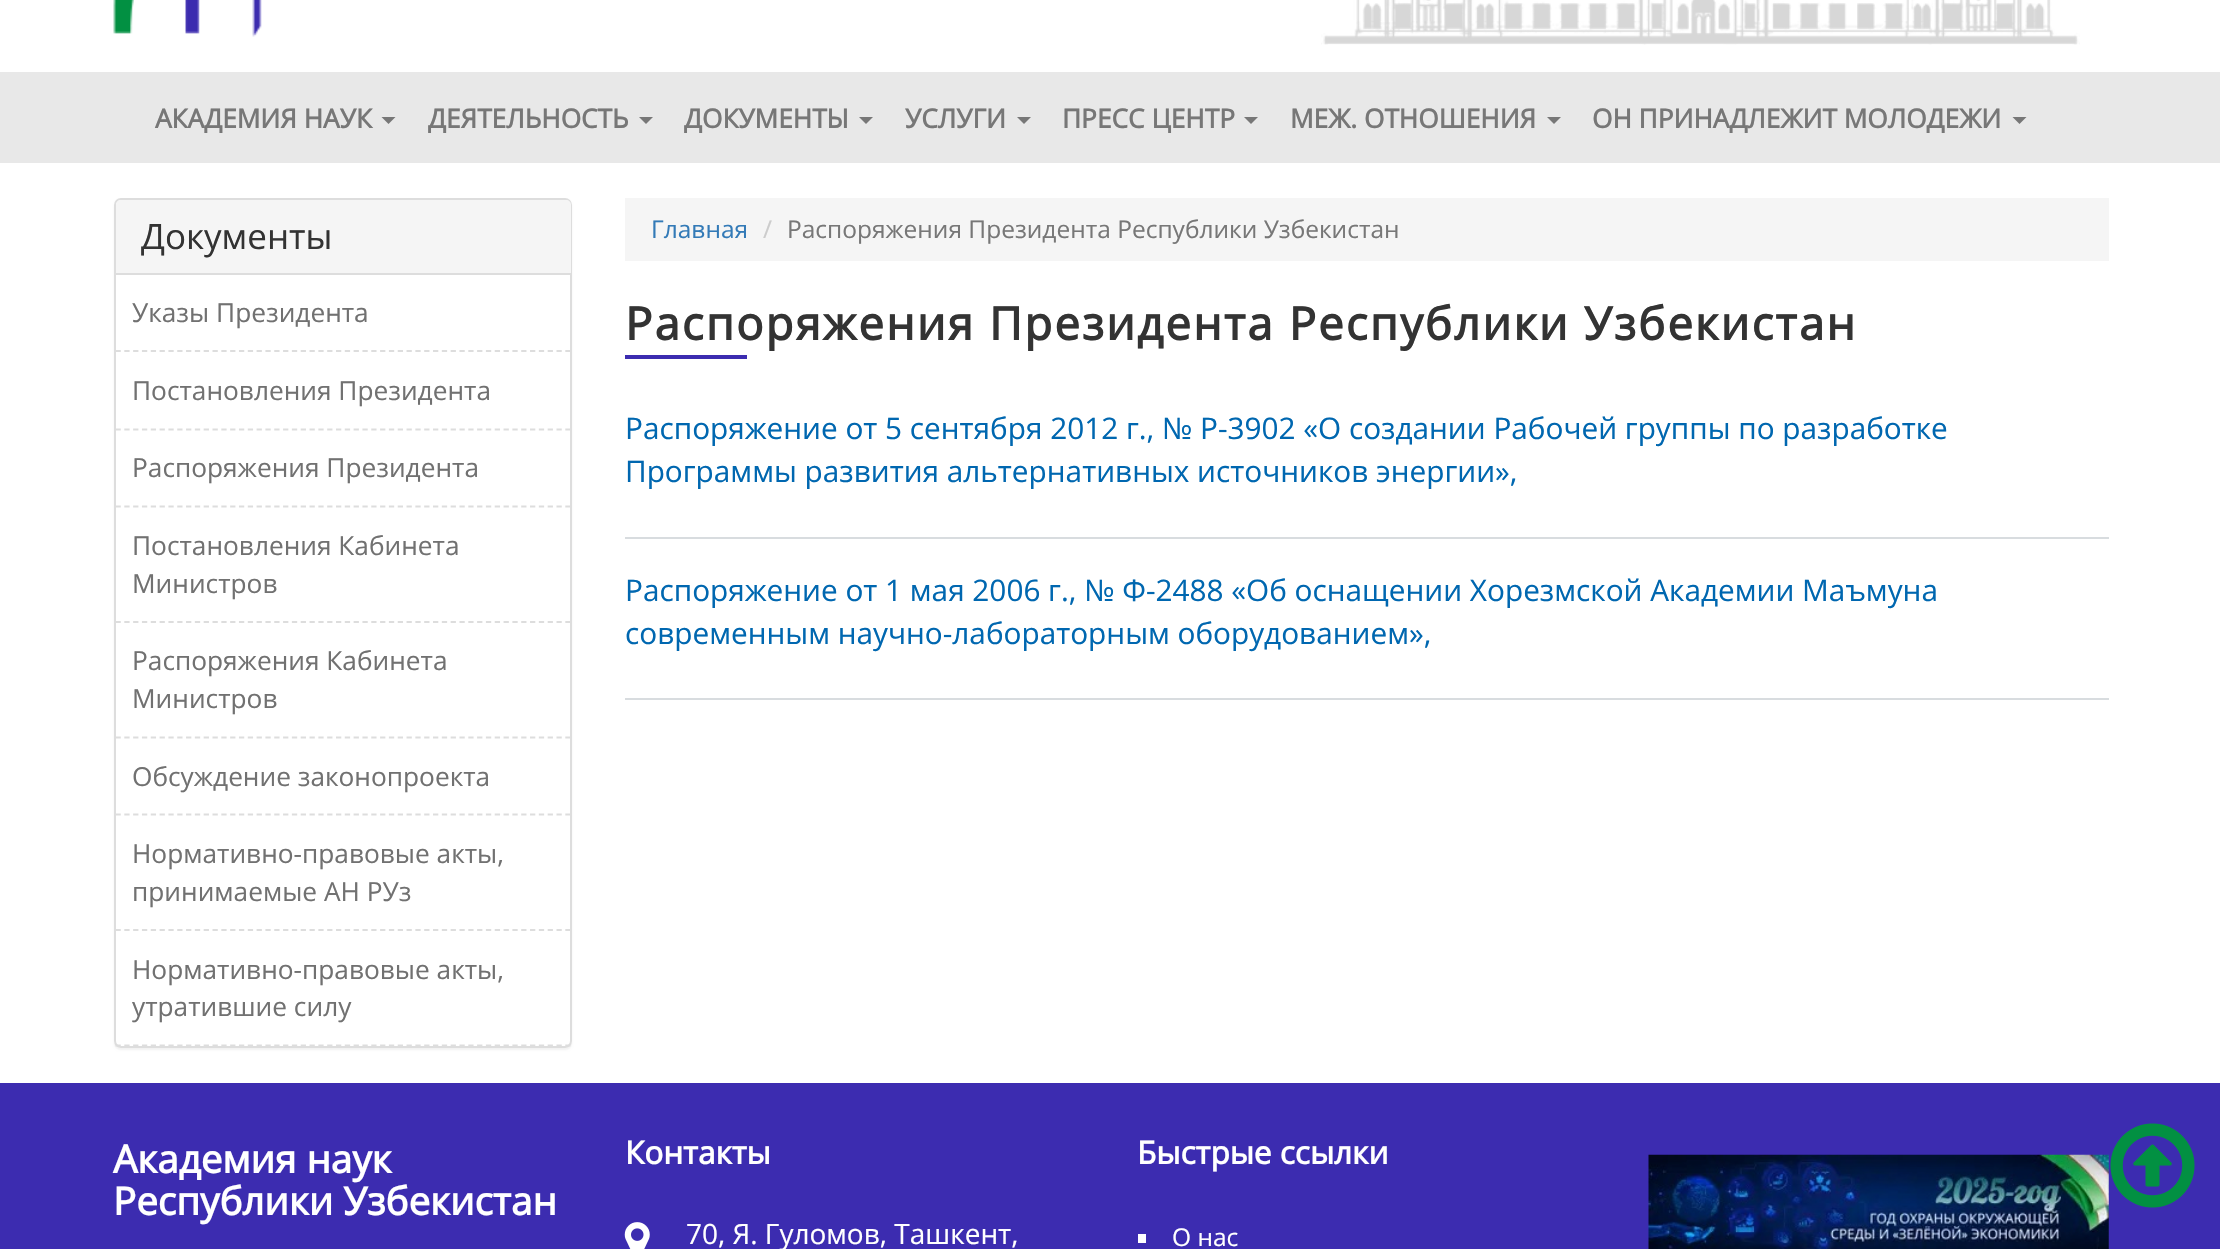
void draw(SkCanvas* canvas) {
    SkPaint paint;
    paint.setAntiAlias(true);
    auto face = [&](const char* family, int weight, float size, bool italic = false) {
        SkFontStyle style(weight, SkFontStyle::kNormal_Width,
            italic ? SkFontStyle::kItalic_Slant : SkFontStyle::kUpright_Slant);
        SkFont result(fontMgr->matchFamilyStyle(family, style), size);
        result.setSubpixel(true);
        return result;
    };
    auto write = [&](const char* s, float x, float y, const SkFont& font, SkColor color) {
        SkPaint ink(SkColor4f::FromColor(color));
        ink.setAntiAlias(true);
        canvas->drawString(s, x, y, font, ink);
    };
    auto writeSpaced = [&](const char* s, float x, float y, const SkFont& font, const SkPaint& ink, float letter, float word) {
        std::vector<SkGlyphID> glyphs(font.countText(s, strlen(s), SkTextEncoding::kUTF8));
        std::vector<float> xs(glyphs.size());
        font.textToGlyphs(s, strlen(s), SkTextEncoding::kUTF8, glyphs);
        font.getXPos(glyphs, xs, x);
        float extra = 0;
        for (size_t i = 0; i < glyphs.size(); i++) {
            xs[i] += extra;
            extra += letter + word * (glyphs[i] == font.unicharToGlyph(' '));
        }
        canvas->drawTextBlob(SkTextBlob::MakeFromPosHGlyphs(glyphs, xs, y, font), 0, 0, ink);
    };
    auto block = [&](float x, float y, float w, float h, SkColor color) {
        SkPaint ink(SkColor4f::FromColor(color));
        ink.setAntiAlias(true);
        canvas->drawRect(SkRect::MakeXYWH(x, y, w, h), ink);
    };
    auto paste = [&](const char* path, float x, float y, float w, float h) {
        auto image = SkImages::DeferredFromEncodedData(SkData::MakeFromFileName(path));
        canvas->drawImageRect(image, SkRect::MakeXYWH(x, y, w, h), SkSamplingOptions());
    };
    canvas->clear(SK_ColorWHITE);
    paste("pic1.png", 113, 0, 149, 37);
    paste("pic2.png", 1321, 0, 759, 45);
    block(0, 72, 2220, 91, SkColorSetRGB(232, 232, 232));
    auto kFont1 = face("Open Sans", 700, 26.25f);
    write("АКАДЕМИЯ НАУК", 155, 128, kFont1, SkColorSetRGB(119, 119, 119));
    paint.setColor(SkColorSetRGB(119, 119, 119));
    canvas->drawPath(SkPathBuilder().moveTo(381.5f, 117).lineTo(395.5f, 117).lineTo(388.5f, 124).close().detach(), paint);
    write("ДЕЯТЕЛЬНОСТЬ", 428, 128, kFont1, SkColorSetRGB(119, 119, 119));
    canvas->drawPath(SkPathBuilder().moveTo(639, 117).lineTo(653, 117).lineTo(646, 124).close().detach(), paint);
    write("ДОКУМЕНТЫ", 684, 128, kFont1, SkColorSetRGB(119, 119, 119));
    canvas->drawPath(SkPathBuilder().moveTo(859, 117).lineTo(873, 117).lineTo(866, 124).close().detach(), paint);
    write("УСЛУГИ", 905, 128, kFont1, SkColorSetRGB(119, 119, 119));
    canvas->drawPath(SkPathBuilder().moveTo(1017, 117).lineTo(1031, 117).lineTo(1024, 124).close().detach(), paint);
    write("ПРЕСС ЦЕНТР", 1062, 128, kFont1, SkColorSetRGB(119, 119, 119));
    canvas->drawPath(SkPathBuilder().moveTo(1244, 117).lineTo(1258, 117).lineTo(1251, 124).close().detach(), paint);
    write("МЕЖ. ОТНОШЕНИЯ", 1290, 128, kFont1, SkColorSetRGB(119, 119, 119));
    canvas->drawPath(SkPathBuilder().moveTo(1547, 117).lineTo(1561, 117).lineTo(1554, 124).close().detach(), paint);
    write("ОН ПРИНАДЛЕЖИТ МОЛОДЕЖИ", 1592, 128, kFont1, SkColorSetRGB(119, 119, 119));
    canvas->drawPath(SkPathBuilder().moveTo(2012.5f, 117).lineTo(2026.5f, 117).lineTo(2019.5f, 124).close().detach(), paint);
    canvas->save();
    canvas->clipPath(SkPathBuilder(SkPathFillType::kEvenOdd).moveTo(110, 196).lineTo(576, 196).lineTo(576, 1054).lineTo(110, 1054).close().moveTo(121, 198).lineTo(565, 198).cubicTo(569, 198, 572, 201, 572, 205).lineTo(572, 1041).cubicTo(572, 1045, 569, 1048, 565, 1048).lineTo(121, 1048).cubicTo(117, 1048, 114, 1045, 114, 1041).lineTo(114, 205).cubicTo(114, 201, 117, 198, 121, 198).close().detach(), true);
    paint.setColor(SkColorSetARGB(13, 0, 0, 0));
    paint.setMaskFilter(SkMaskFilter::MakeBlur(kNormal_SkBlurStyle, 1));
    canvas->drawRoundRect(SkRect::MakeXYWH(114, 200, 458, 850), 7, 7, paint);
    paint.setMaskFilter(nullptr);
    canvas->restore();
    paint.setStyle(SkPaint::kStroke_Style);
    paint.setStrokeWidth(2);
    paint.setColor(SkColorSetRGB(221, 221, 221));
    canvas->drawRoundRect(SkRect::MakeXYWH(115, 199, 456, 848), 6, 6, paint);
    paint.setStyle(SkPaint::kFill_Style);
    paint.setColor(SkColorSetRGB(245, 245, 245));
    canvas->drawPath(SkPathBuilder().moveTo(121, 200).lineTo(566, 200).cubicTo(569, 200, 571, 202, 571, 205).lineTo(571, 275).lineTo(116, 275).lineTo(116, 205).cubicTo(116, 202, 118, 200, 121, 200).close().detach(), paint);
    block(116, 273, 455, 2, SkColorSetRGB(221, 221, 221));
    auto kFont2 = face("Open Sans", 400, 35);
    write("Документы", 141, 249, kFont2, SkColorSetRGB(51, 51, 51));
    paint.setStyle(SkPaint::kStroke_Style);
    paint.setStrokeWidth(1.8f);
    paint.setColor(SkColorSetRGB(221, 221, 221));
    paint.setPathEffect(SkDashPathEffect::Make({{5.25f, 3.57f}}, 0));
    canvas->drawPath(SkPathBuilder().moveTo(115.5f, 351).lineTo(570.5f, 351).detach(), paint);
    paint.setPathEffect(nullptr);
    auto kFont3 = face("Open Sans", 400, 26.25f);
    write("Указы Президента", 132, 322, kFont3, SkColorSetRGB(113, 113, 113));
    paint.setPathEffect(SkDashPathEffect::Make({{5.25f, 3.57f}}, 0));
    canvas->drawPath(SkPathBuilder().moveTo(115.5f, 429.5f).lineTo(570.5f, 429.5f).detach(), paint);
    paint.setPathEffect(nullptr);
    write("Постановления Президента", 132, 400, kFont3, SkColorSetRGB(113, 113, 113));
    paint.setPathEffect(SkDashPathEffect::Make({{5.25f, 3.57f}}, 0));
    canvas->drawPath(SkPathBuilder().moveTo(115.5f, 506.5f).lineTo(570.5f, 506.5f).detach(), paint);
    paint.setPathEffect(nullptr);
    write("Распоряжения Президента", 132, 477, kFont3, SkColorSetRGB(113, 113, 113));
    paint.setPathEffect(SkDashPathEffect::Make({{5.25f, 3.57f}}, 0));
    canvas->drawPath(SkPathBuilder().moveTo(115.5f, 622).lineTo(570.5f, 622).detach(), paint);
    paint.setPathEffect(nullptr);
    write("Постановления Кабинета", 132, 555, kFont3, SkColorSetRGB(113, 113, 113));
    write("Министров", 132, 593, kFont3, SkColorSetRGB(113, 113, 113));
    paint.setPathEffect(SkDashPathEffect::Make({{5.25f, 3.57f}}, 0));
    canvas->drawPath(SkPathBuilder().moveTo(115.5f, 737.5f).lineTo(570.5f, 737.5f).detach(), paint);
    paint.setPathEffect(nullptr);
    write("Распоряжения Кабинета", 132, 670, kFont3, SkColorSetRGB(113, 113, 113));
    write("Министров", 132, 708, kFont3, SkColorSetRGB(113, 113, 113));
    paint.setPathEffect(SkDashPathEffect::Make({{5.25f, 3.57f}}, 0));
    canvas->drawPath(SkPathBuilder().moveTo(115.5f, 814.5f).lineTo(570.5f, 814.5f).detach(), paint);
    paint.setPathEffect(nullptr);
    write("Обсуждение законопроекта", 132, 786, kFont3, SkColorSetRGB(113, 113, 113));
    paint.setPathEffect(SkDashPathEffect::Make({{5.25f, 3.57f}}, 0));
    canvas->drawPath(SkPathBuilder().moveTo(115.5f, 930).lineTo(570.5f, 930).detach(), paint);
    paint.setPathEffect(nullptr);
    write("Нормативно-правовые акты,", 132, 863, kFont3, SkColorSetRGB(113, 113, 113));
    write("принимаемые АН РУз", 132, 901, kFont3, SkColorSetRGB(113, 113, 113));
    paint.setPathEffect(SkDashPathEffect::Make({{5.25f, 3.57f}}, 0));
    canvas->drawPath(SkPathBuilder().moveTo(115.5f, 1045.5f).lineTo(570.5f, 1045.5f).detach(), paint);
    paint.setPathEffect(nullptr);
    write("Нормативно-правовые акты,", 132, 979, kFont3, SkColorSetRGB(113, 113, 113));
    write("утратившие силу", 132, 1016, kFont3, SkColorSetRGB(113, 113, 113));
    block(625, 198, 1484, 63, SkColorSetRGB(245, 245, 245));
    auto kFont4 = face("Open Sans", 400, 24.5f);
    write("Главная", 651, 238, kFont4, SkColorSetRGB(51, 122, 183));
    write("/", 763, 238, kFont4, SkColorSetRGB(204, 204, 204));
    write("Распоряжения Президента Республики Узбекистан", 787, 238, kFont4, SkColorSetRGB(119, 119, 119));
    auto kFont5 = face("Open Sans", 700, 45.5f);
    paint.setStyle(SkPaint::kFill_Style);
    paint.setColor(SkColorSetRGB(51, 51, 51));
    writeSpaced("Распоряжения Президента Республики Узбекистан", 625, 340, kFont5, paint, 2.1f, 0);
    block(625, 355, 122, 4, SkColorSetRGB(60, 44, 176));
    block(625, 537, 1484, 2, SkColorSetRGB(216, 220, 223));
    auto kFont6 = face("Open Sans", 400, 29.75f);
    write("Распоряжение от 5 сентября 2012 г., № Р-3902 «О создании Рабочей группы по разработке", 625, 439, kFont6, SkColorSetRGB(0, 103, 176));
    write("Программы развития альтернативных источников энергии»,", 625, 482, kFont6, SkColorSetRGB(0, 103, 176));
    block(625, 698, 1484, 2, SkColorSetRGB(216, 220, 223));
    write("Распоряжение от 1 мая 2006 г., № Ф-2488 «Об оснащении Хорезмской Академии Маъмуна", 625, 601, kFont6, SkColorSetRGB(0, 103, 176));
    write("современным научно-лабораторным оборудованием»,", 625, 644, kFont6, SkColorSetRGB(0, 103, 176));
    block(0, 1083, 2220, 166, SkColorSetRGB(60, 44, 176));
    auto kFont7 = face("Open Sans", 700, 38.5f);
    write("Академия наук", 113, 1173, kFont7, SK_ColorWHITE);
    write("Республики Узбекистан", 113, 1215, kFont7, SK_ColorWHITE);
    auto kFont8 = face("Open Sans", 700, 31.5f);
    write("Контакты", 625, 1164, kFont8, SK_ColorWHITE);
    paste("pic3.png", 624, 1222, 26, 27);
    auto kFont9 = face("Open Sans", 400, 28);
    write("70, Я. Гуломов, Ташкент,", 686, 1244, kFont9, SK_ColorWHITE);
    write("Быстрые ссылки", 1137, 1164, kFont8, SK_ColorWHITE);
    block(1138, 1234, 8, 9, SK_ColorWHITE);
    write("О нас", 1172, 1246, kFont4, SK_ColorWHITE);
    paste("pic4.png", 1648, 1154, 461, 95);
    paste("pic5.png", 2110, 1123, 85, 85);
}
